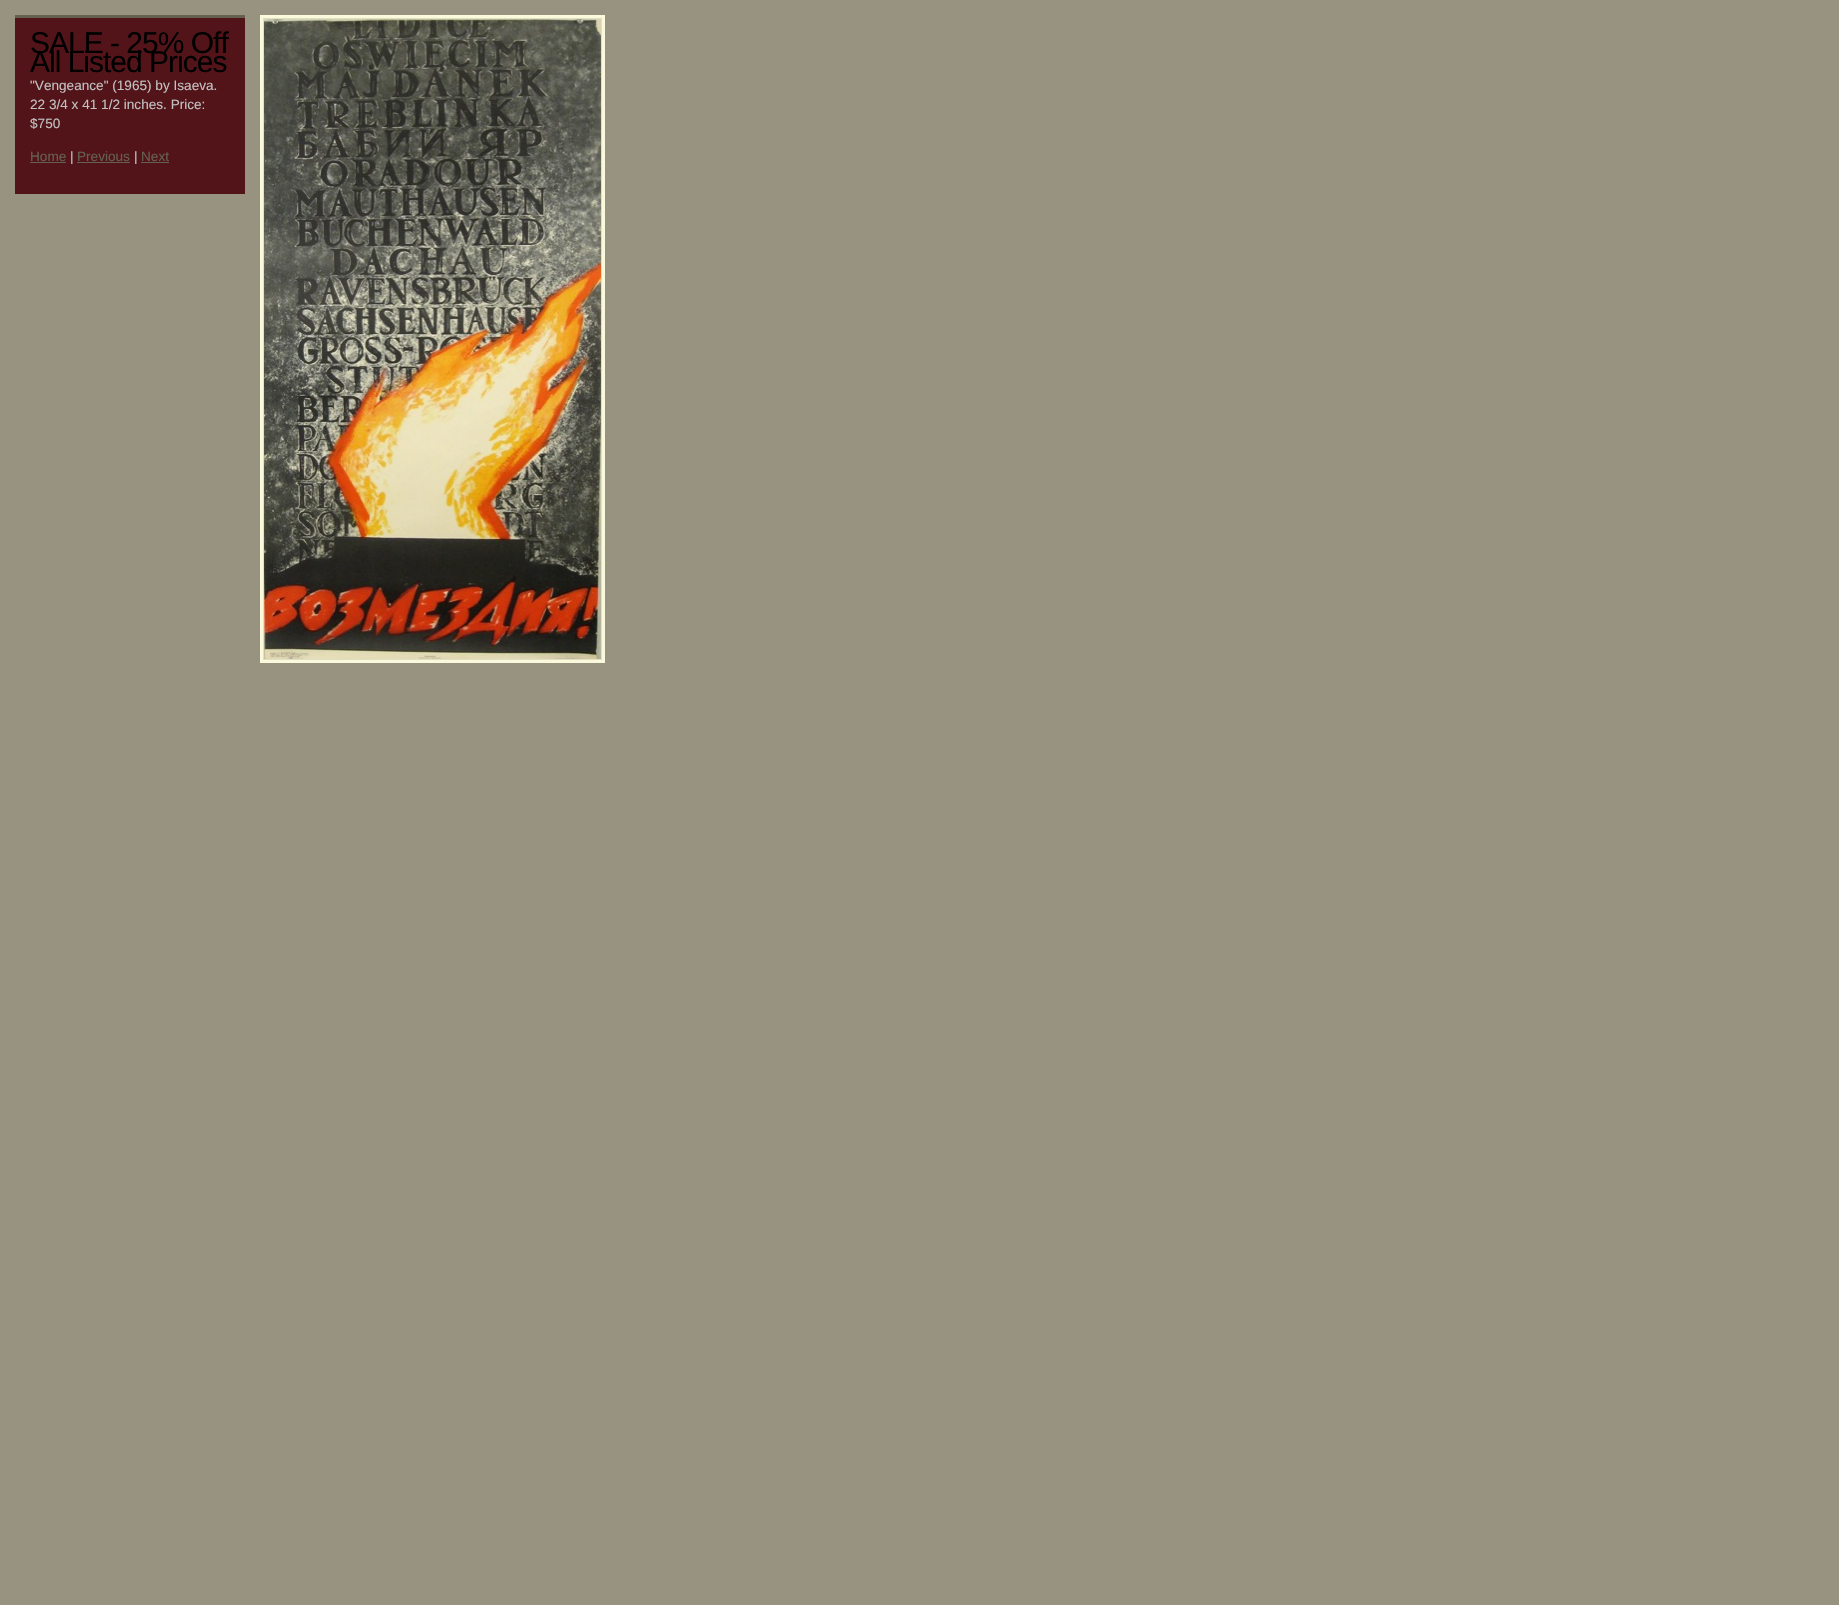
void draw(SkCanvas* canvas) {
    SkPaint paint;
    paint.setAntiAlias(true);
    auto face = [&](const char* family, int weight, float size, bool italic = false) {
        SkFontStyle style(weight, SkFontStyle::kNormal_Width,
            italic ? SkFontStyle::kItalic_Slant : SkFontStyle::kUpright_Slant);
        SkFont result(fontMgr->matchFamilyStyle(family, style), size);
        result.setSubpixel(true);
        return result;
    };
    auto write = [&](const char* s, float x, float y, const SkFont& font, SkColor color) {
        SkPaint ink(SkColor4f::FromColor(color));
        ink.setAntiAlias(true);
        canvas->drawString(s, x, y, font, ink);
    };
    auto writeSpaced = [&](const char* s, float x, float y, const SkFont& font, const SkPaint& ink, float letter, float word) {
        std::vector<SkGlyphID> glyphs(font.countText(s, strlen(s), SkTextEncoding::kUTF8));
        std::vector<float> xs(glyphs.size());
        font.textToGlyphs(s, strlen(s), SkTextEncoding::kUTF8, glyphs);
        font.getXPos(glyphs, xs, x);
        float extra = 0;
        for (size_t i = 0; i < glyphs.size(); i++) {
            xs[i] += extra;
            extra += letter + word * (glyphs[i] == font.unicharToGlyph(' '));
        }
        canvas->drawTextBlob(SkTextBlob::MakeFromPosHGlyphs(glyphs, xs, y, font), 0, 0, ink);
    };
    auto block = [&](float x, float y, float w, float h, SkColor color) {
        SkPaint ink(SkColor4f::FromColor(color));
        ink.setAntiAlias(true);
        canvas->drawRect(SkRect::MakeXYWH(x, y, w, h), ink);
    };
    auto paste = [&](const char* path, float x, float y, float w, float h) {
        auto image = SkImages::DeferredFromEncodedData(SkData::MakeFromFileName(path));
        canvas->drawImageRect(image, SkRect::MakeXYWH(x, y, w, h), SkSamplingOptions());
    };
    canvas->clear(SkColorSetRGB(152, 147, 128));
    block(15, 18, 230, 176, SkColorSetRGB(83, 20, 25));
    block(15, 15, 230, 3, SkColorSetRGB(100, 97, 79));
    auto kFont1 = face("Liberation Sans", 400, 30);
    paint.setColor(SK_ColorBLACK);
    writeSpaced("SALE - 25% Off", 30, 53, kFont1, paint, -1, 0);
    writeSpaced("All Listed Prices", 30, 72, kFont1, paint, -1, 0);
    auto kFont2 = face("Liberation Sans", 400, 13.6f);
    write("\"Vengeance\" (1965) by Isaeva.", 30, 90, kFont2, SkColorSetRGB(193, 193, 193));
    write("22 3/4 x 41 1/2 inches. Price:", 30, 109, kFont2, SkColorSetRGB(193, 193, 193));
    write("$750", 30, 128, kFont2, SkColorSetRGB(193, 193, 193));
    write("Home", 30, 161, kFont2, SkColorSetRGB(100, 97, 79));
    block(30, 162, 36, 1, SkColorSetRGB(100, 97, 79));
    write("|", 70, 161, kFont2, SkColorSetRGB(193, 193, 193));
    write("Previous", 77, 161, kFont2, SkColorSetRGB(100, 97, 79));
    block(77, 162, 53, 1, SkColorSetRGB(100, 97, 79));
    write("|", 134, 161, kFont2, SkColorSetRGB(193, 193, 193));
    write("Next", 141, 161, kFont2, SkColorSetRGB(100, 97, 79));
    block(141, 162, 28, 1, SkColorSetRGB(100, 97, 79));
    paint.setColor(SkColorSetRGB(225, 223, 194));
    canvas->drawRect(SkRect::MakeXYWH(261.5f, 16.5f, 342, 645), paint);
    paint.setStyle(SkPaint::kStroke_Style);
    paint.setStrokeWidth(3);
    paint.setColor(SkColorSetRGB(251, 249, 220));
    canvas->drawRect(SkRect::MakeXYWH(261.5f, 16.5f, 342, 645), paint);
    paste("pic1.png", 264, 19, 337, 640);
}
